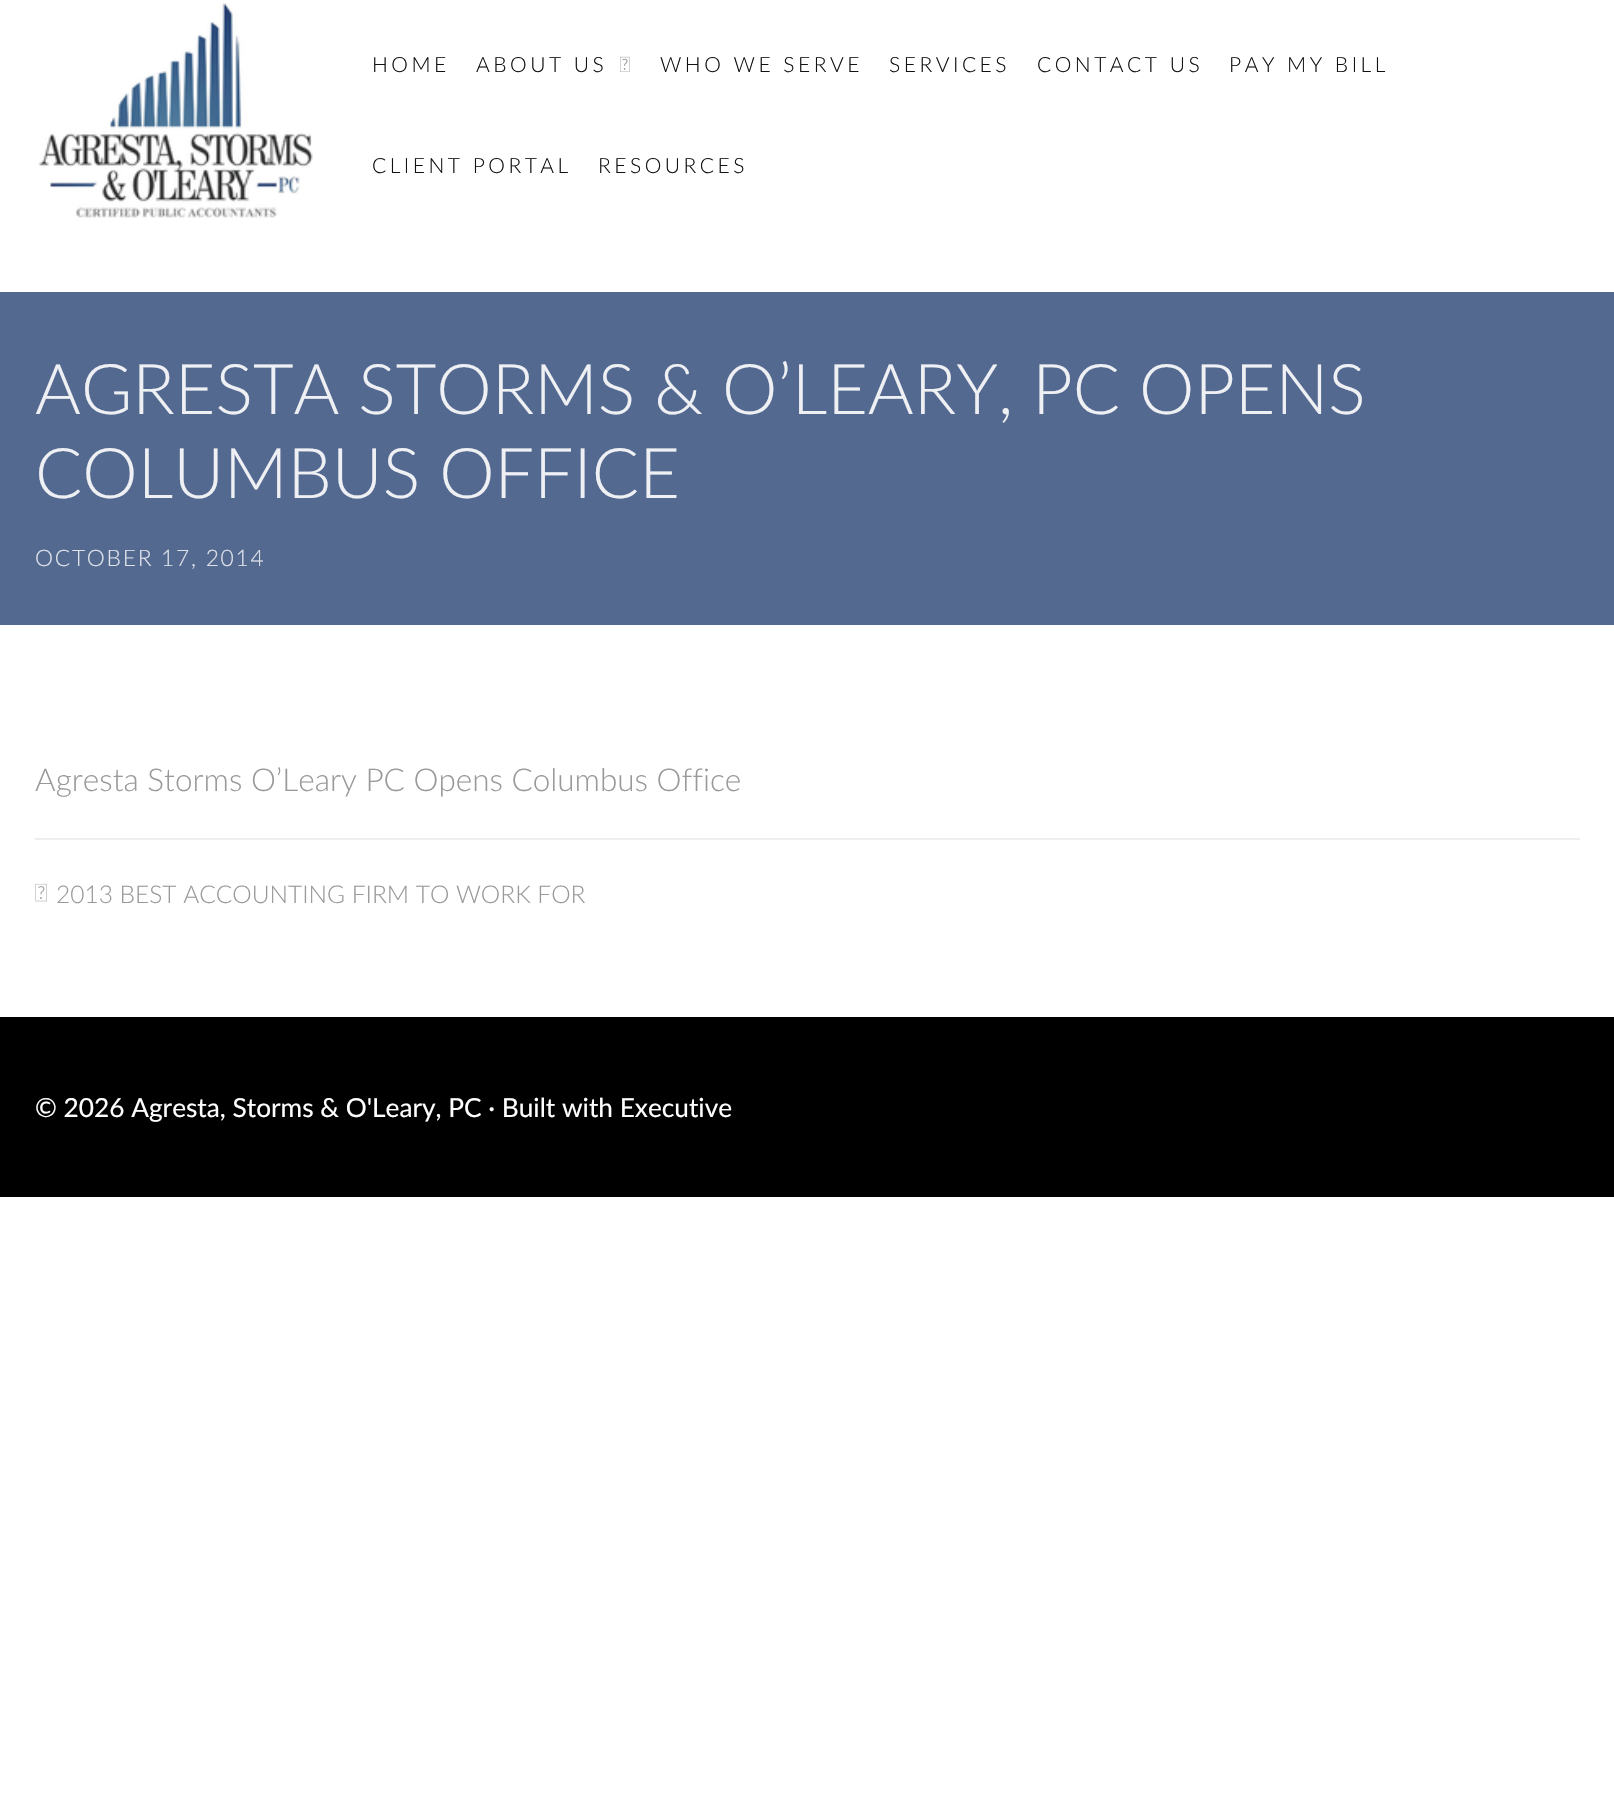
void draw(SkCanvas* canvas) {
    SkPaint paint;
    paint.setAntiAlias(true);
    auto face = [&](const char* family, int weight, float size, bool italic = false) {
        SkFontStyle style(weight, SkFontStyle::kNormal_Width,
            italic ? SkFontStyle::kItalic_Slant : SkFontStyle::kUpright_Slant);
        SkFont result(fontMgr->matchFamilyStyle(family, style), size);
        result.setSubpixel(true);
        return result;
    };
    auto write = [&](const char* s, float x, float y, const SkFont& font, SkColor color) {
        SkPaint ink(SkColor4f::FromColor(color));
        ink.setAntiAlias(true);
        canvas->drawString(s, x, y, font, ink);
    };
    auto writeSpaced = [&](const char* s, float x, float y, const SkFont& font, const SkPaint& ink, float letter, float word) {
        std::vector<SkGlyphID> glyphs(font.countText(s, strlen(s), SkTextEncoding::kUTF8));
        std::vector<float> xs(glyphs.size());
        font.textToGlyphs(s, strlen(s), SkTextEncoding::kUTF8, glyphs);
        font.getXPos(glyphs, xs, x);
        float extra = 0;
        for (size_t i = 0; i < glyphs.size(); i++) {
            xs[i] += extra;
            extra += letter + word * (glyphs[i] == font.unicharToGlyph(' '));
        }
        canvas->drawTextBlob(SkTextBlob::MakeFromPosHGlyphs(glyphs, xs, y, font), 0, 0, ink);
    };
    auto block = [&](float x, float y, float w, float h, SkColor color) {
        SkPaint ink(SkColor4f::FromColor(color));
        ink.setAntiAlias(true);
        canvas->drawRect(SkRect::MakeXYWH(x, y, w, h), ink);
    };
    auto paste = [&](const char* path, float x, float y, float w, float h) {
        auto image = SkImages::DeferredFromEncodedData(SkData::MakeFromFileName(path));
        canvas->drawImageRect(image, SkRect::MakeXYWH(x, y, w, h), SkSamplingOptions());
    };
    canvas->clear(SK_ColorWHITE);
    paste("pic1.png", 38, 3, 275, 215);
    auto kFont1 = face("Lato", 300, 21);
    paint.setColor(SkColorSetRGB(18, 18, 18));
    writeSpaced("HOME", 372, 72, kFont1, paint, 3.5f, 0);
    writeSpaced("ABOUT US", 476, 72, kFont1, paint, 3.5f, 0);
    paste("pic2.png", 620, 56, 10, 16);
    writeSpaced("WHO WE SERVE", 660, 72, kFont1, paint, 3.5f, 0);
    writeSpaced("SERVICES", 889, 72, kFont1, paint, 3.5f, 0);
    writeSpaced("CONTACT US", 1037, 72, kFont1, paint, 3.5f, 0);
    writeSpaced("PAY MY BILL", 1229, 72, kFont1, paint, 3.5f, 0);
    writeSpaced("CLIENT PORTAL", 372, 173, kFont1, paint, 3.5f, 0);
    writeSpaced("RESOURCES", 598, 173, kFont1, paint, 3.5f, 0);
    block(0, 292, 1614, 333, SkColorSetRGB(84, 105, 144));
    auto kFont2 = face("Lato", 300, 70);
    write("AGRESTA STORMS & O’LEARY, PC OPENS", 35, 414, kFont2, SkColorSetRGB(238, 240, 244));
    write("COLUMBUS OFFICE", 35, 498, kFont2, SkColorSetRGB(238, 240, 244));
    auto kFont3 = face("Lato", 300, 22.75f);
    paint.setColor(SkColorSetRGB(223, 227, 234));
    writeSpaced("OCTOBER 17, 2014", 35, 566, kFont3, paint, 1.75f, 0);
    auto kFont4 = face("Lato", 300, 31.5f);
    write("Agresta Storms O’Leary PC Opens Columbus Office", 35, 791, kFont4, SkColorSetRGB(153, 153, 153));
    block(35, 838, 1545, 2, SkColorSetRGB(238, 238, 238));
    paste("pic3.png", 35, 883, 12, 19);
    auto kFont5 = face("Lato", 300, 24.5f);
    write("2013 BEST ACCOUNTING FIRM TO WORK FOR", 56, 903, kFont5, SkColorSetRGB(153, 153, 153));
    block(0, 1017, 1614, 180, SK_ColorBLACK);
    auto kFont6 = face("Lato", 400, 26.25f);
    write("© 2026 Agresta, Storms & O'Leary, PC · Built with Executive", 35, 1117, kFont6, SK_ColorWHITE);
}
